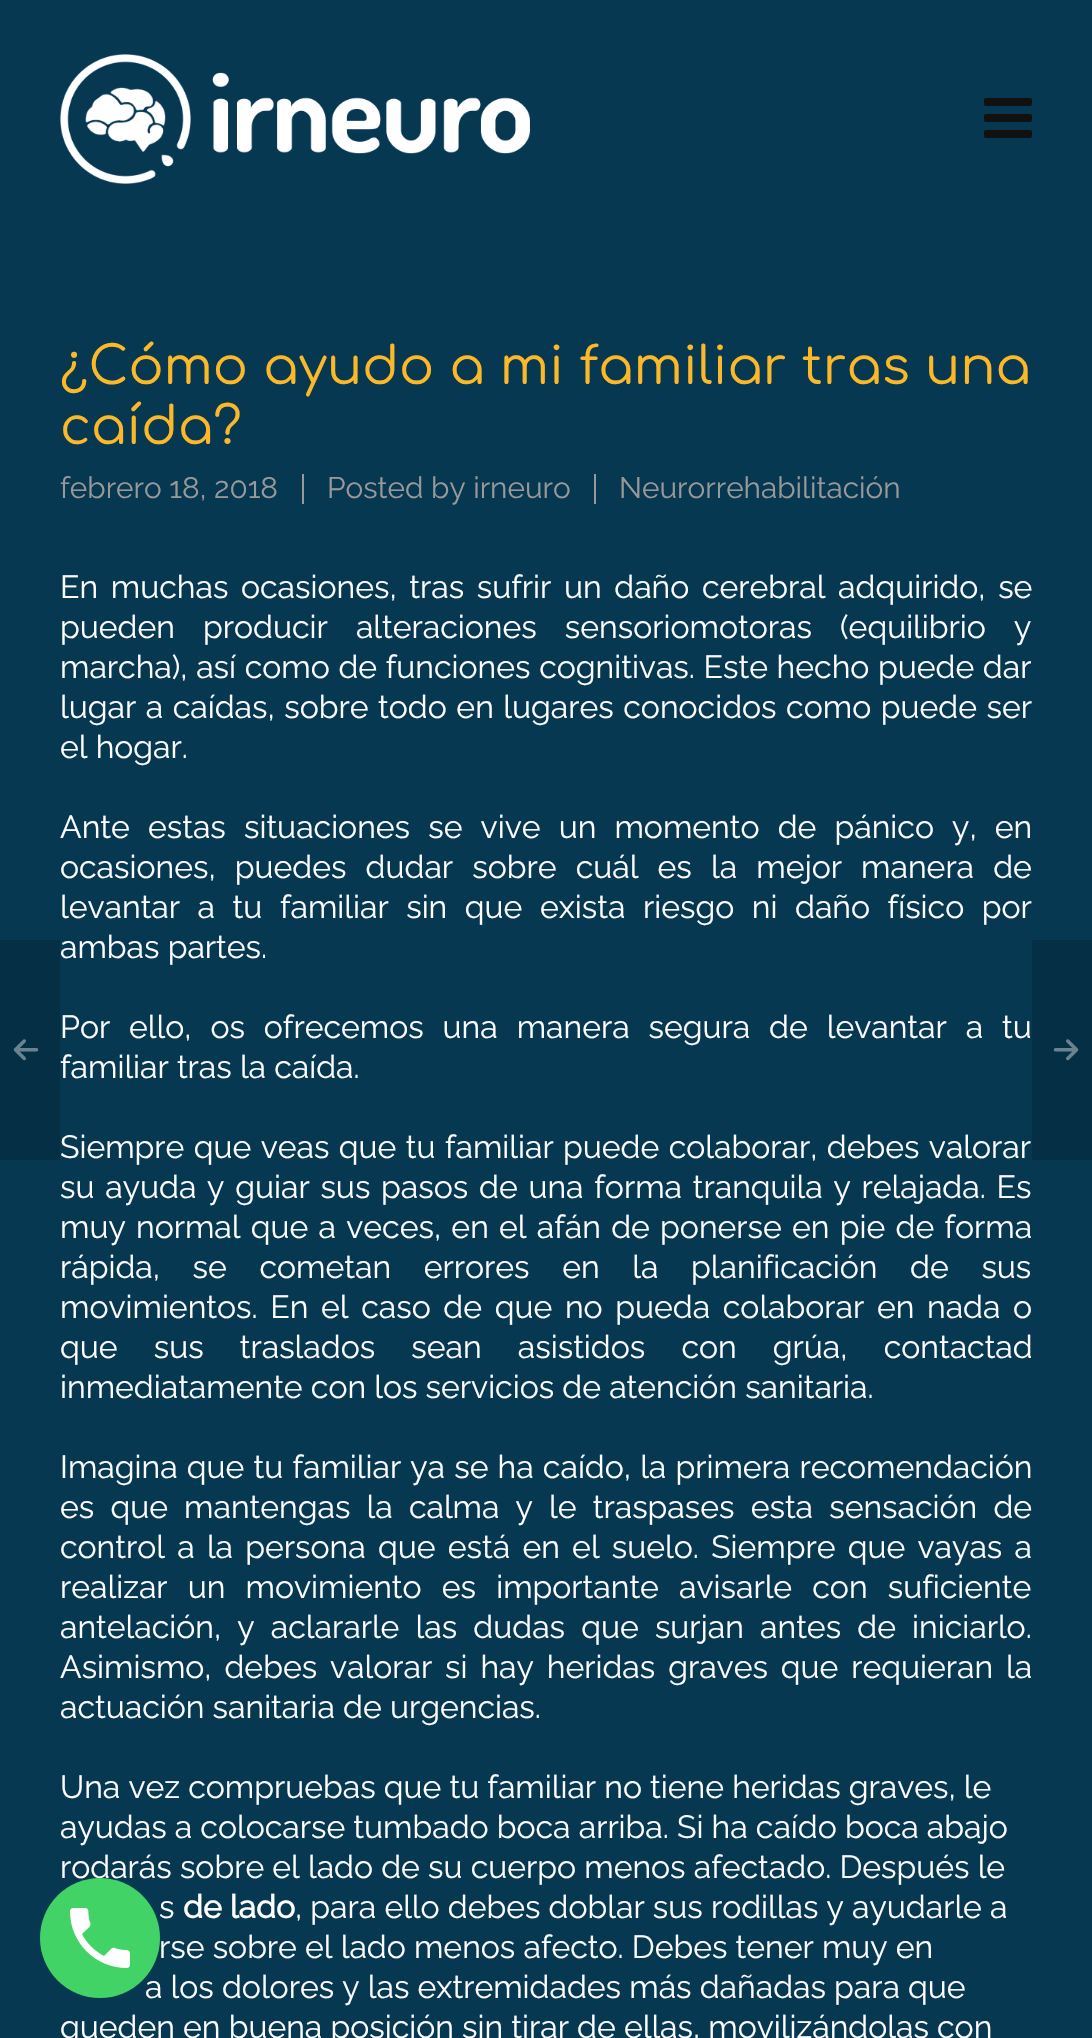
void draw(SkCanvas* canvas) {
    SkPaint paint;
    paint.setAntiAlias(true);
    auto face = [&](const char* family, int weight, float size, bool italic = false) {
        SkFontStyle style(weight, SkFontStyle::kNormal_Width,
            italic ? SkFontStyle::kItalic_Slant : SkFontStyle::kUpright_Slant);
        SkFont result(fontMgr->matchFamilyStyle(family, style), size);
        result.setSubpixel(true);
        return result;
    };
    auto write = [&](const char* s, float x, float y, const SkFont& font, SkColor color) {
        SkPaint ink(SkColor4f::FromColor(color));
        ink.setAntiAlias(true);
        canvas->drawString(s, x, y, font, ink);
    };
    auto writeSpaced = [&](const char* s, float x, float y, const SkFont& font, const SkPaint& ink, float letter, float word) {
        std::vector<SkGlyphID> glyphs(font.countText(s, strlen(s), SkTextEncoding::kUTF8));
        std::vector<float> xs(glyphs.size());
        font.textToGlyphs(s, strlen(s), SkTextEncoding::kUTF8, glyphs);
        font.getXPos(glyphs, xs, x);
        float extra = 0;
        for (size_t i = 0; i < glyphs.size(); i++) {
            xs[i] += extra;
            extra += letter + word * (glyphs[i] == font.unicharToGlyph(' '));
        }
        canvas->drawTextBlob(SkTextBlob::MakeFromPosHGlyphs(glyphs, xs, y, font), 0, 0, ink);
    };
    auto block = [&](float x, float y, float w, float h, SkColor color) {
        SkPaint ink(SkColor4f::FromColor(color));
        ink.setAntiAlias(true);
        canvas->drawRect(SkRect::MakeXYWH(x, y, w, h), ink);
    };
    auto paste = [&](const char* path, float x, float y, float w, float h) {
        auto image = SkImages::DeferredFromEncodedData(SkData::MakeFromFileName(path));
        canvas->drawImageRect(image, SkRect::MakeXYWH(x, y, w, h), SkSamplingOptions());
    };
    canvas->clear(SkColorSetRGB(6, 56, 82));
    paste("pic1.png", 60, 54, 470, 130);
    paste("pic2.png", 984, 98, 48, 40);
    auto kFont1 = face("Comfortaa", 400, 52);
    write("¿Cómo ayudo a mi familiar tras una", 60, 384, kFont1, SkColorSetRGB(252, 184, 39));
    write("caída?", 60, 444, kFont1, SkColorSetRGB(252, 184, 39));
    auto kFont2 = face("Raleway", 400, 29.75f);
    write("febrero 18, 2018", 60, 498, kFont2, SkColorSetRGB(153, 153, 153));
    block(302, 474, 2, 30, SkColorSetRGB(153, 153, 153));
    write("Posted by irneuro", 327, 498, kFont2, SkColorSetRGB(153, 153, 153));
    block(594, 474, 2, 30, SkColorSetRGB(153, 153, 153));
    write("Neurorrehabilitación", 619, 498, kFont2, SkColorSetRGB(153, 153, 153));
    auto kFont3 = face("Raleway", 400, 32);
    paint.setColor(SK_ColorWHITE);
    writeSpaced("En muchas ocasiones, tras sufrir un daño cerebral adquirido, se", 60, 598, kFont3, paint, 0, 4.5f);
    writeSpaced("pueden producir alteraciones sensoriomotoras (equilibrio y", 60, 638, kFont3, paint, 0, 20);
    writeSpaced("marcha), así como de funciones cognitivas. Este hecho puede dar", 60, 678, kFont3, paint, 0, 0.5f);
    writeSpaced("lugar a caídas, sobre todo en lugares conocidos como puede ser", 60, 718, kFont3, paint, 0, 1.4f);
    write("el hogar.", 60, 758, kFont3, SK_ColorWHITE);
    writeSpaced("Ante estas situaciones se vive un momento de pánico y, en", 60, 838, kFont3, paint, 0, 10);
    writeSpaced("ocasiones, puedes dudar sobre cuál es la mejor manera de", 60, 878, kFont3, paint, 0, 11);
    writeSpaced("levantar a tu familiar sin que exista riesgo ni daño físico por", 60, 918, kFont3, paint, 0, 9.4f);
    write("ambas partes.", 60, 958, kFont3, SK_ColorWHITE);
    writeSpaced("Por ello, os ofrecemos una manera segura de levantar a tu", 60, 1038, kFont3, paint, 0, 10.75f);
    write("familiar tras la caída.", 60, 1078, kFont3, SK_ColorWHITE);
    writeSpaced("Siempre que veas que tu familiar puede colaborar, debes valorar", 60, 1158, kFont3, paint, 0, 1.25f);
    writeSpaced("su ayuda y guiar sus pasos de una forma tranquila y relajada. Es", 60, 1198, kFont3, paint, 0, 2.6f);
    writeSpaced("muy normal que a veces, en el afán de ponerse en pie de forma", 60, 1238, kFont3, paint, 0, 2.1f);
    writeSpaced("rápida, se cometan errores en la planificación de sus", 60, 1278, kFont3, paint, 0, 24.5f);
    writeSpaced("movimientos. En el caso de que no pueda colaborar en nada o", 60, 1318, kFont3, paint, 0, 4.5f);
    writeSpaced("que sus traslados sean asistidos con grúa, contactad", 60, 1358, kFont3, paint, 0, 28);
    write("inmediatamente con los servicios de atención sanitaria.", 60, 1398, kFont3, SK_ColorWHITE);
    writeSpaced("Imagina que tu familiar ya se ha caído, la primera recomendación", 60, 1478, kFont3, paint, 0, 1);
    writeSpaced("es que mantengas la calma y le traspases esta sensación de", 60, 1518, kFont3, paint, 0, 8);
    writeSpaced("control a la persona que está en el suelo. Siempre que vayas a", 60, 1558, kFont3, paint, 0, 4.1f);
    writeSpaced("realizar un movimiento es importante avisarle con suficiente", 60, 1598, kFont3, paint, 0, 12);
    writeSpaced("antelación, y aclararle las dudas que surjan antes de iniciarlo.", 60, 1638, kFont3, paint, 0, 8);
    writeSpaced("Asimismo, debes valorar si hay heridas graves que requieran la", 60, 1678, kFont3, paint, 0, 4.75f);
    write("actuación sanitaria de urgencias.", 60, 1718, kFont3, SK_ColorWHITE);
    write("Una vez compruebas que tu familiar no tiene heridas graves, le", 60, 1798, kFont3, SK_ColorWHITE);
    write("ayudas a colocarse tumbado boca arriba. Si ha caído boca abajo", 60, 1838, kFont3, SK_ColorWHITE);
    write("rodarás sobre el lado de su cuerpo menos afectado. Después le", 60, 1878, kFont3, SK_ColorWHITE);
    write("s", 159, 1918, kFont3, SK_ColorWHITE);
    auto kFont4 = face("Raleway", 700, 32);
    write("de lado", 183, 1918, kFont4, SK_ColorWHITE);
    write(", para ello debes doblar sus rodillas y ayudarle a", 295, 1918, kFont3, SK_ColorWHITE);
    write("rse sobre el lado menos afecto. Debes tener muy en", 159, 1958, kFont3, SK_ColorWHITE);
    write("a los dolores y las extremidades más dañadas para que", 145, 1998, kFont3, SK_ColorWHITE);
    write("queden en buena posición sin tirar de ellas, movilizándolas con", 60, 2038, kFont3, SK_ColorWHITE);
    block(0, 940, 60, 220, SkColorSetRGB(5, 47, 69));
    paste("pic3.png", 13, 1039, 26, 22);
    block(1032, 940, 60, 220, SkColorSetRGB(5, 47, 69));
    paste("pic4.png", 1053, 1039, 26, 22);
    paint.setColor(SkColorSetRGB(65, 211, 101));
    canvas->drawCircle(100, 1938, 60, paint);
    paste("pic5.png", 70, 1908, 60, 60);
}
